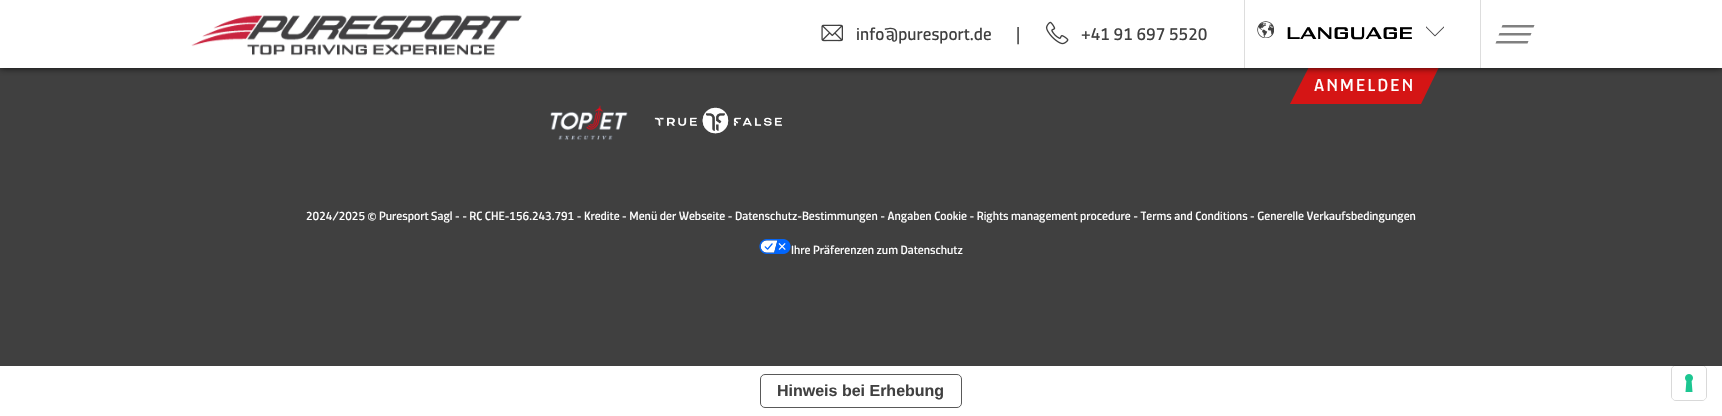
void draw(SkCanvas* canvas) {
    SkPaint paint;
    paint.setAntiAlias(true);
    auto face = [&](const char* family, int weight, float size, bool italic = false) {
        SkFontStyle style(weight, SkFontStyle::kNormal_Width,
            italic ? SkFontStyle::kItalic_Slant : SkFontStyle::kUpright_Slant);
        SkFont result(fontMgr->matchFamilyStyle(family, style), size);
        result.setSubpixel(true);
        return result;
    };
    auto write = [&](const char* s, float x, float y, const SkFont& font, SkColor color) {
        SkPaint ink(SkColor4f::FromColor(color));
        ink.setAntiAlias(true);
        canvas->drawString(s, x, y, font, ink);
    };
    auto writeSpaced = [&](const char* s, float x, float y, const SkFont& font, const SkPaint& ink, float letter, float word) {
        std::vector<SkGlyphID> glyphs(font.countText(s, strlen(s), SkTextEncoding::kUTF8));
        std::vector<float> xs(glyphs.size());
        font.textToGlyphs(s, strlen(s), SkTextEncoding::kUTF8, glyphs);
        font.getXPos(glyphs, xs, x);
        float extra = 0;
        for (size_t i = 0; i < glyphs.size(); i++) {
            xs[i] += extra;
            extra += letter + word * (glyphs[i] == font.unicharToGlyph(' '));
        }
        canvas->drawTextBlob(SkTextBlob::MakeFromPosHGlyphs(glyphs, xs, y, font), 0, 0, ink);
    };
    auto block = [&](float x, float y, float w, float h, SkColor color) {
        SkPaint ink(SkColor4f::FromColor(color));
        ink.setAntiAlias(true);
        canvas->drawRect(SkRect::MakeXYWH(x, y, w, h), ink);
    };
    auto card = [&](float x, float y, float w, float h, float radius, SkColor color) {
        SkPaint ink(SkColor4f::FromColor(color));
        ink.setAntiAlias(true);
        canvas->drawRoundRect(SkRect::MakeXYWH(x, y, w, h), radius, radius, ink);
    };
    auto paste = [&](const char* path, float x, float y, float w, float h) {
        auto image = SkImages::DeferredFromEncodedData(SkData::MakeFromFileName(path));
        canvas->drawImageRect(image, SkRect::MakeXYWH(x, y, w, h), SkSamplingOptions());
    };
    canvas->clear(SK_ColorWHITE);
    block(0, 68, 1722, 298, SkColorSetRGB(64, 64, 64));
    paint.setColor(SkColorSetRGB(213, 21, 21));
    canvas->drawPath(SkPathBuilder().moveTo(1310, 65).lineTo(1440, 65).lineTo(1421, 104).lineTo(1290, 104).close().detach(), paint);
    paint.setColor(SkColorSetARGB(204, 0, 0, 0));
    paint.setMaskFilter(SkMaskFilter::MakeBlur(kNormal_SkBlurStyle, 3.5f));
    canvas->drawRect(SkRect::MakeXYWH(0, 0, 1722, 68), paint);
    paint.setMaskFilter(nullptr);
    block(0, 0, 1722, 68, SK_ColorWHITE);
    paste("pic1.png", 191, 14, 331, 42);
    paste("pic2.png", 821, 24, 22, 18);
    auto kFont1 = face("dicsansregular", 400, 17.5f);
    write("info@puresport.de", 856, 40, kFont1, SkColorSetRGB(64, 64, 64));
    write("|", 1016, 40, kFont1, SkColorSetRGB(77, 77, 77));
    paste("pic3.png", 1045, 21, 24, 24);
    write("+41 91 697 5520", 1081, 40, kFont1, SkColorSetRGB(64, 64, 64));
    block(1244, 0, 1, 68, SkColorSetRGB(221, 221, 221));
    paste("pic4.png", 1257, 21, 17, 17);
    auto kFont2 = face("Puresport", 400, 17.5f);
    write("LANGUAGE", 1286, 39, kFont2, SK_ColorBLACK);
    paste("pic5.png", 1426, 26, 18, 11);
    block(1480, 0, 1, 68, SkColorSetRGB(221, 221, 221));
    paint.setColor(SkColorSetRGB(128, 128, 128));
    canvas->drawPath(SkPathBuilder().moveTo(1502.5f, 25).lineTo(1534.5f, 25).lineTo(1533.5f, 27.5f).lineTo(1501.5f, 27.5f).close().moveTo(1499.5f, 33).lineTo(1531.5f, 33).lineTo(1530.5f, 35.5f).lineTo(1498.5f, 35.5f).close().moveTo(1496.5f, 41).lineTo(1528.5f, 41).lineTo(1527.5f, 43.5f).lineTo(1495.5f, 43.5f).close().detach(), paint);
    paint.setColor(SK_ColorWHITE);
    writeSpaced("ANMELDEN", 1314, 91, kFont1, paint, 2.25f, 0);
    paste("pic6.png", 550, 105, 78, 35);
    paste("pic7.png", 654, 107, 128, 27);
    auto kFont3 = face("dicsansregular", 400, 12);
    write("2024/2025 © Puresport Sagl - - RC CHE-156.243.791 - Kredite - Menü der Webseite - Datenschutz-Bestimmungen - Angaben Cookie - Rights management procedure - Terms and Conditions - Generelle Verkaufsbedingungen", 306, 220, kFont3, SK_ColorWHITE);
    paste("pic8.png", 759, 239, 32, 15);
    write("Ihre Präferenzen zum Datenschutz", 791, 254, kFont3, SK_ColorWHITE);
    paint.setStyle(SkPaint::kStroke_Style);
    paint.setStrokeWidth(1);
    paint.setColor(SkColorSetRGB(89, 89, 89));
    canvas->drawRoundRect(SkRect::MakeXYWH(760.5f, 374.5f, 201, 33), 4.5f, 4.5f, paint);
    auto kFont4 = face("Liberation Sans", 700, 16);
    write("Hinweis bei Erhebung", 777, 396, kFont4, SkColorSetRGB(64, 64, 64));
    paint.setColor(SkColorSetARGB(38, 0, 0, 0));
    canvas->drawRoundRect(SkRect::MakeXYWH(1671.5f, 365.5f, 35, 35), 4.5f, 4.5f, paint);
    card(1672, 366, 34, 34, 4, SK_ColorWHITE);
    paste("pic9.png", 1685, 374, 8, 18);
}
